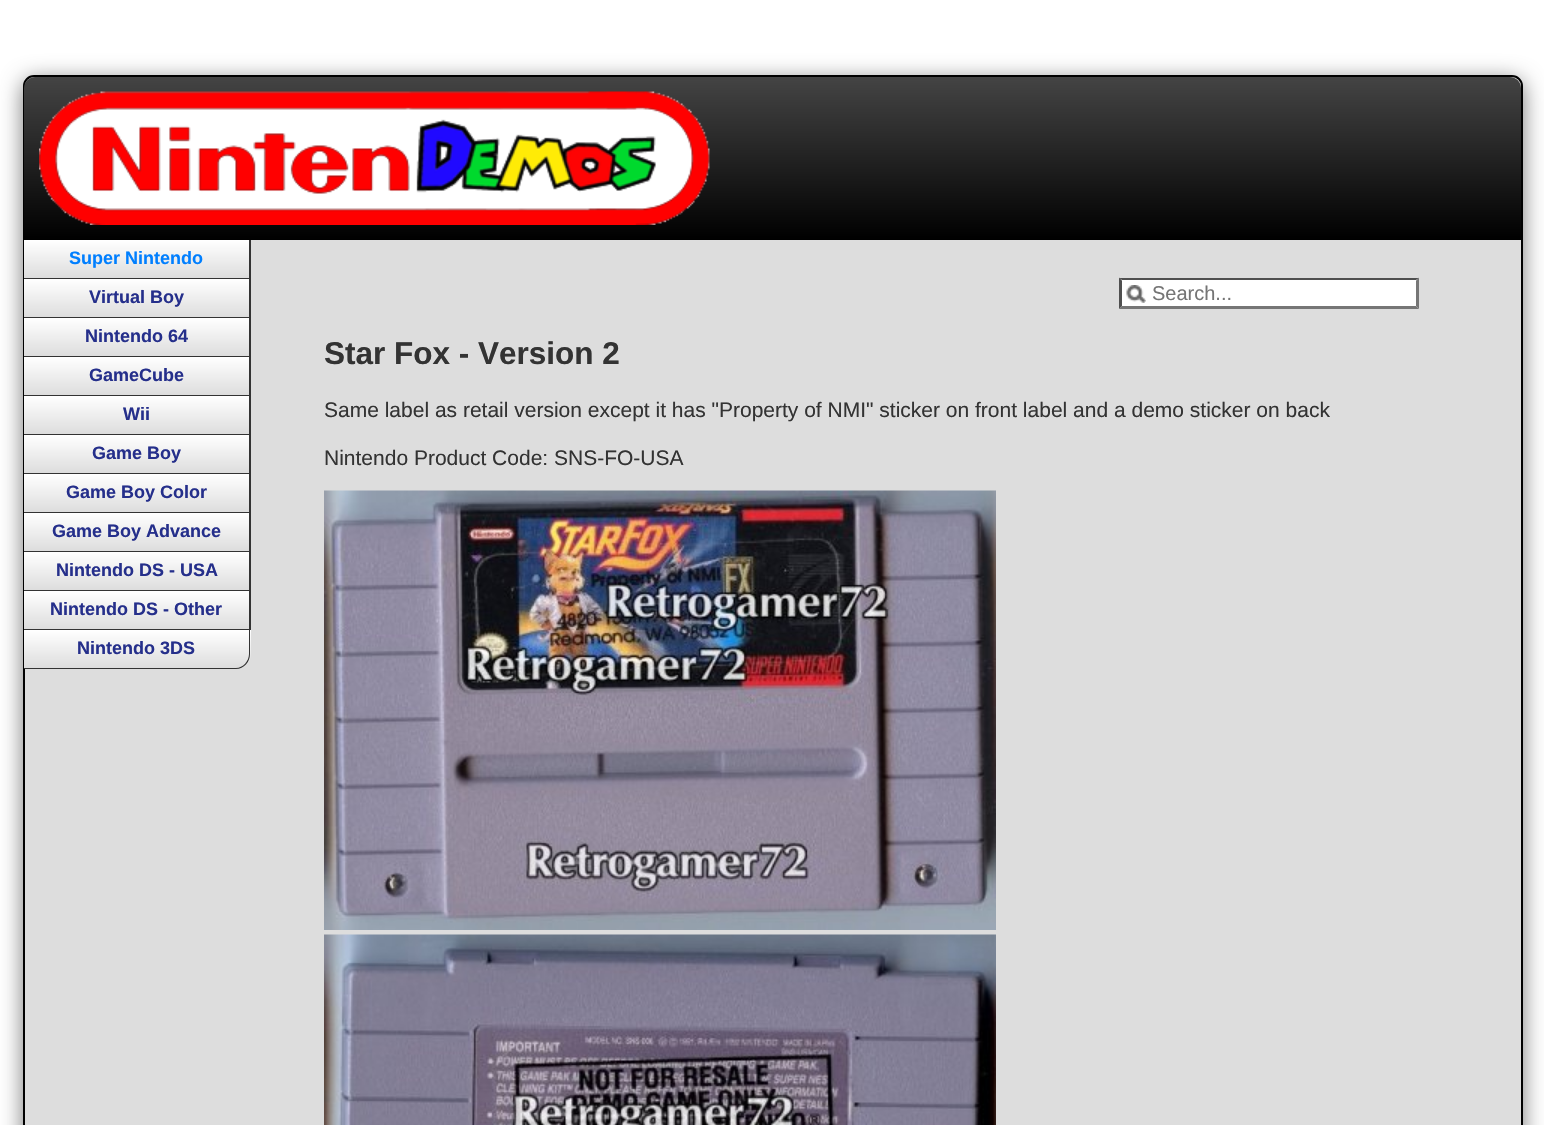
void draw(SkCanvas* canvas) {
    SkPaint paint;
    paint.setAntiAlias(true);
    auto face = [&](const char* family, int weight, float size, bool italic = false) {
        SkFontStyle style(weight, SkFontStyle::kNormal_Width,
            italic ? SkFontStyle::kItalic_Slant : SkFontStyle::kUpright_Slant);
        SkFont result(fontMgr->matchFamilyStyle(family, style), size);
        result.setSubpixel(true);
        return result;
    };
    auto write = [&](const char* s, float x, float y, const SkFont& font, SkColor color) {
        SkPaint ink(SkColor4f::FromColor(color));
        ink.setAntiAlias(true);
        canvas->drawString(s, x, y, font, ink);
    };
    auto block = [&](float x, float y, float w, float h, SkColor color) {
        SkPaint ink(SkColor4f::FromColor(color));
        ink.setAntiAlias(true);
        canvas->drawRect(SkRect::MakeXYWH(x, y, w, h), ink);
    };
    auto paste = [&](const char* path, float x, float y, float w, float h) {
        auto image = SkImages::DeferredFromEncodedData(SkData::MakeFromFileName(path));
        canvas->drawImageRect(image, SkRect::MakeXYWH(x, y, w, h), SkSamplingOptions());
    };
    canvas->clear(SK_ColorWHITE);
    paint.setColor(SkColorSetRGB(119, 119, 119));
    paint.setMaskFilter(SkMaskFilter::MakeBlur(kNormal_SkBlurStyle, 11));
    canvas->drawRoundRect(SkRect::MakeXYWH(23, 80, 1500, 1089), 11, 11, paint);
    paint.setMaskFilter(nullptr);
    paint.setColor(SkColorSetRGB(221, 221, 221));
    canvas->drawRoundRect(SkRect::MakeXYWH(24, 76, 1498, 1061), 10, 10, paint);
    paint.setStyle(SkPaint::kStroke_Style);
    paint.setStrokeWidth(2);
    paint.setColor(SK_ColorBLACK);
    canvas->drawRoundRect(SkRect::MakeXYWH(24, 76, 1498, 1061), 10, 10, paint);
    paint.setStyle(SkPaint::kFill_Style);
    {
        const SkColor colors[] = {SkColorSetRGB(68, 68, 68), SK_ColorBLACK};
        const float stops[] = {0, 1};
        const SkPoint ends[] = {{24, 77}, {24, 240}};
        paint.setShader(SkGradientShader::MakeLinear(ends, colors, stops, 2, SkTileMode::kClamp));
        paint.setAlpha(255);
    }
    canvas->drawPath(SkPathBuilder().moveTo(35, 77).lineTo(1510, 77).cubicTo(1516, 77, 1521, 82, 1521, 88).lineTo(1521, 240).lineTo(24, 240).lineTo(24, 88).cubicTo(24, 82, 29, 77, 35, 77).close().detach(), paint);
    paste("pic1.png", 39, 91, 671, 134);
    {
        const SkColor colors[] = {SK_ColorWHITE, SkColorSetRGB(221, 221, 221)};
        const float stops[] = {0, 1};
        const SkPoint ends[] = {{24, 240}, {24, 278}};
        paint.setShader(SkGradientShader::MakeLinear(ends, colors, stops, 2, SkTileMode::kClamp));
        paint.setAlpha(255);
    }
    canvas->drawRect(SkRect::MakeXYWH(24, 240, 225, 38), paint);
    block(249, 240, 2, 390, SkColorSetRGB(51, 51, 51));
    block(24, 278, 227, 1, SkColorSetRGB(51, 51, 51));
    auto kFont1 = face("Liberation Sans", 700, 18);
    write("Super Nintendo", 69, 264, kFont1, SkColorSetRGB(0, 127, 255));
    {
        const SkColor colors[] = {SK_ColorWHITE, SkColorSetRGB(221, 221, 221)};
        const float stops[] = {0, 1};
        const SkPoint ends[] = {{24, 279}, {24, 317}};
        paint.setShader(SkGradientShader::MakeLinear(ends, colors, stops, 2, SkTileMode::kClamp));
        paint.setAlpha(255);
    }
    canvas->drawRect(SkRect::MakeXYWH(24, 279, 225, 38), paint);
    block(24, 317, 227, 1, SkColorSetRGB(51, 51, 51));
    write("Virtual Boy", 89, 303, kFont1, SkColorSetRGB(37, 47, 139));
    {
        const SkColor colors[] = {SK_ColorWHITE, SkColorSetRGB(221, 221, 221)};
        const float stops[] = {0, 1};
        const SkPoint ends[] = {{24, 318}, {24, 356}};
        paint.setShader(SkGradientShader::MakeLinear(ends, colors, stops, 2, SkTileMode::kClamp));
        paint.setAlpha(255);
    }
    canvas->drawRect(SkRect::MakeXYWH(24, 318, 225, 38), paint);
    block(24, 356, 227, 1, SkColorSetRGB(51, 51, 51));
    write("Nintendo 64", 85, 342, kFont1, SkColorSetRGB(37, 47, 139));
    {
        const SkColor colors[] = {SK_ColorWHITE, SkColorSetRGB(221, 221, 221)};
        const float stops[] = {0, 1};
        const SkPoint ends[] = {{24, 357}, {24, 395}};
        paint.setShader(SkGradientShader::MakeLinear(ends, colors, stops, 2, SkTileMode::kClamp));
        paint.setAlpha(255);
    }
    canvas->drawRect(SkRect::MakeXYWH(24, 357, 225, 38), paint);
    block(24, 395, 227, 1, SkColorSetRGB(51, 51, 51));
    write("GameCube", 89, 381, kFont1, SkColorSetRGB(37, 47, 139));
    {
        const SkColor colors[] = {SK_ColorWHITE, SkColorSetRGB(221, 221, 221)};
        const float stops[] = {0, 1};
        const SkPoint ends[] = {{24, 396}, {24, 434}};
        paint.setShader(SkGradientShader::MakeLinear(ends, colors, stops, 2, SkTileMode::kClamp));
        paint.setAlpha(255);
    }
    canvas->drawRect(SkRect::MakeXYWH(24, 396, 225, 38), paint);
    block(24, 434, 227, 1, SkColorSetRGB(51, 51, 51));
    write("Wii", 123, 420, kFont1, SkColorSetRGB(37, 47, 139));
    {
        const SkColor colors[] = {SK_ColorWHITE, SkColorSetRGB(221, 221, 221)};
        const float stops[] = {0, 1};
        const SkPoint ends[] = {{24, 435}, {24, 473}};
        paint.setShader(SkGradientShader::MakeLinear(ends, colors, stops, 2, SkTileMode::kClamp));
        paint.setAlpha(255);
    }
    canvas->drawRect(SkRect::MakeXYWH(24, 435, 225, 38), paint);
    block(24, 473, 227, 1, SkColorSetRGB(51, 51, 51));
    write("Game Boy", 92, 459, kFont1, SkColorSetRGB(37, 47, 139));
    {
        const SkColor colors[] = {SK_ColorWHITE, SkColorSetRGB(221, 221, 221)};
        const float stops[] = {0, 1};
        const SkPoint ends[] = {{24, 474}, {24, 512}};
        paint.setShader(SkGradientShader::MakeLinear(ends, colors, stops, 2, SkTileMode::kClamp));
        paint.setAlpha(255);
    }
    canvas->drawRect(SkRect::MakeXYWH(24, 474, 225, 38), paint);
    block(24, 512, 227, 1, SkColorSetRGB(51, 51, 51));
    write("Game Boy Color", 66, 498, kFont1, SkColorSetRGB(37, 47, 139));
    {
        const SkColor colors[] = {SK_ColorWHITE, SkColorSetRGB(221, 221, 221)};
        const float stops[] = {0, 1};
        const SkPoint ends[] = {{24, 513}, {24, 551}};
        paint.setShader(SkGradientShader::MakeLinear(ends, colors, stops, 2, SkTileMode::kClamp));
        paint.setAlpha(255);
    }
    canvas->drawRect(SkRect::MakeXYWH(24, 513, 225, 38), paint);
    block(24, 551, 227, 1, SkColorSetRGB(51, 51, 51));
    write("Game Boy Advance", 52, 537, kFont1, SkColorSetRGB(37, 47, 139));
    {
        const SkColor colors[] = {SK_ColorWHITE, SkColorSetRGB(221, 221, 221)};
        const float stops[] = {0, 1};
        const SkPoint ends[] = {{24, 552}, {24, 590}};
        paint.setShader(SkGradientShader::MakeLinear(ends, colors, stops, 2, SkTileMode::kClamp));
        paint.setAlpha(255);
    }
    canvas->drawRect(SkRect::MakeXYWH(24, 552, 225, 38), paint);
    block(24, 590, 227, 1, SkColorSetRGB(51, 51, 51));
    write("Nintendo DS - USA", 56, 576, kFont1, SkColorSetRGB(37, 47, 139));
    {
        const SkColor colors[] = {SK_ColorWHITE, SkColorSetRGB(221, 221, 221)};
        const float stops[] = {0, 1};
        const SkPoint ends[] = {{24, 591}, {24, 629}};
        paint.setShader(SkGradientShader::MakeLinear(ends, colors, stops, 2, SkTileMode::kClamp));
        paint.setAlpha(255);
    }
    canvas->drawRect(SkRect::MakeXYWH(24, 591, 225, 38), paint);
    block(24, 629, 227, 1, SkColorSetRGB(51, 51, 51));
    write("Nintendo DS - Other", 50, 615, kFont1, SkColorSetRGB(37, 47, 139));
    canvas->save();
    canvas->clipPath(SkPathBuilder().moveTo(24, 630).lineTo(251, 630).lineTo(251, 654).cubicTo(251, 662.5f, 244.5f, 669, 236, 669).lineTo(24, 669).close().detach(), true);
    {
        const SkColor colors[] = {SK_ColorWHITE, SkColorSetRGB(221, 221, 221)};
        const float stops[] = {0, 1};
        const SkPoint ends[] = {{24, 630}, {24, 668}};
        paint.setShader(SkGradientShader::MakeLinear(ends, colors, stops, 2, SkTileMode::kClamp));
        paint.setAlpha(255);
    }
    canvas->drawRect(SkRect::MakeXYWH(24, 630, 227, 38), paint);
    canvas->restore();
    paint.setShader(nullptr);
    paint.setColor(SkColorSetRGB(51, 51, 51));
    canvas->drawPath(SkPathBuilder(SkPathFillType::kEvenOdd).moveTo(24, 630).lineTo(250, 630).lineTo(250, 654).cubicTo(250, 662, 244, 669, 236, 669).lineTo(24, 669).close().moveTo(24, 630).lineTo(249, 630).lineTo(249, 654).cubicTo(249, 661, 243, 668, 236, 668).lineTo(24, 668).close().detach(), paint);
    write("Nintendo 3DS", 77, 654, kFont1, SkColorSetRGB(37, 47, 139));
    block(1119, 278, 300, 31, SK_ColorWHITE);
    paste("pic2.png", 1126, 285, 20, 18);
    paint.setColor(SkColorSetRGB(79, 79, 79));
    canvas->drawPath(SkPathBuilder().moveTo(1119, 278).lineTo(1419, 278).lineTo(1416, 280).lineTo(1122, 280).close().detach(), paint);
    paint.setColor(SkColorSetRGB(118, 118, 118));
    canvas->drawPath(SkPathBuilder().moveTo(1419, 277.5f).lineTo(1419, 309).lineTo(1416, 306).lineTo(1416, 280.5f).close().detach(), paint);
    canvas->drawPath(SkPathBuilder().moveTo(1419, 309).lineTo(1119, 309).lineTo(1122, 306).lineTo(1416, 306).close().detach(), paint);
    paint.setColor(SkColorSetRGB(79, 79, 79));
    canvas->drawPath(SkPathBuilder().moveTo(1119, 309).lineTo(1119, 277.5f).lineTo(1122, 280.5f).lineTo(1122, 306).close().detach(), paint);
    auto kFont2 = face("Liberation Sans", 400, 20);
    write("Search...", 1152, 300, kFont2, SkColorSetRGB(117, 117, 117));
    auto kFont3 = face("Liberation Sans", 700, 31.5f);
    write("Star Fox - Version 2", 324, 364, kFont3, SkColorSetRGB(51, 51, 51));
    auto kFont4 = face("Liberation Sans", 400, 21);
    write("Same label as retail version except it has \"Property of NMI\" sticker on front label and a demo sticker on back", 324, 417, kFont4, SkColorSetRGB(51, 51, 51));
    write("Nintendo Product Code: SNS-FO-USA", 324, 465, kFont4, SkColorSetRGB(51, 51, 51));
    paste("pic3.png", 324, 490, 672, 440);
    paste("pic4.png", 324, 934, 672, 191);
}
